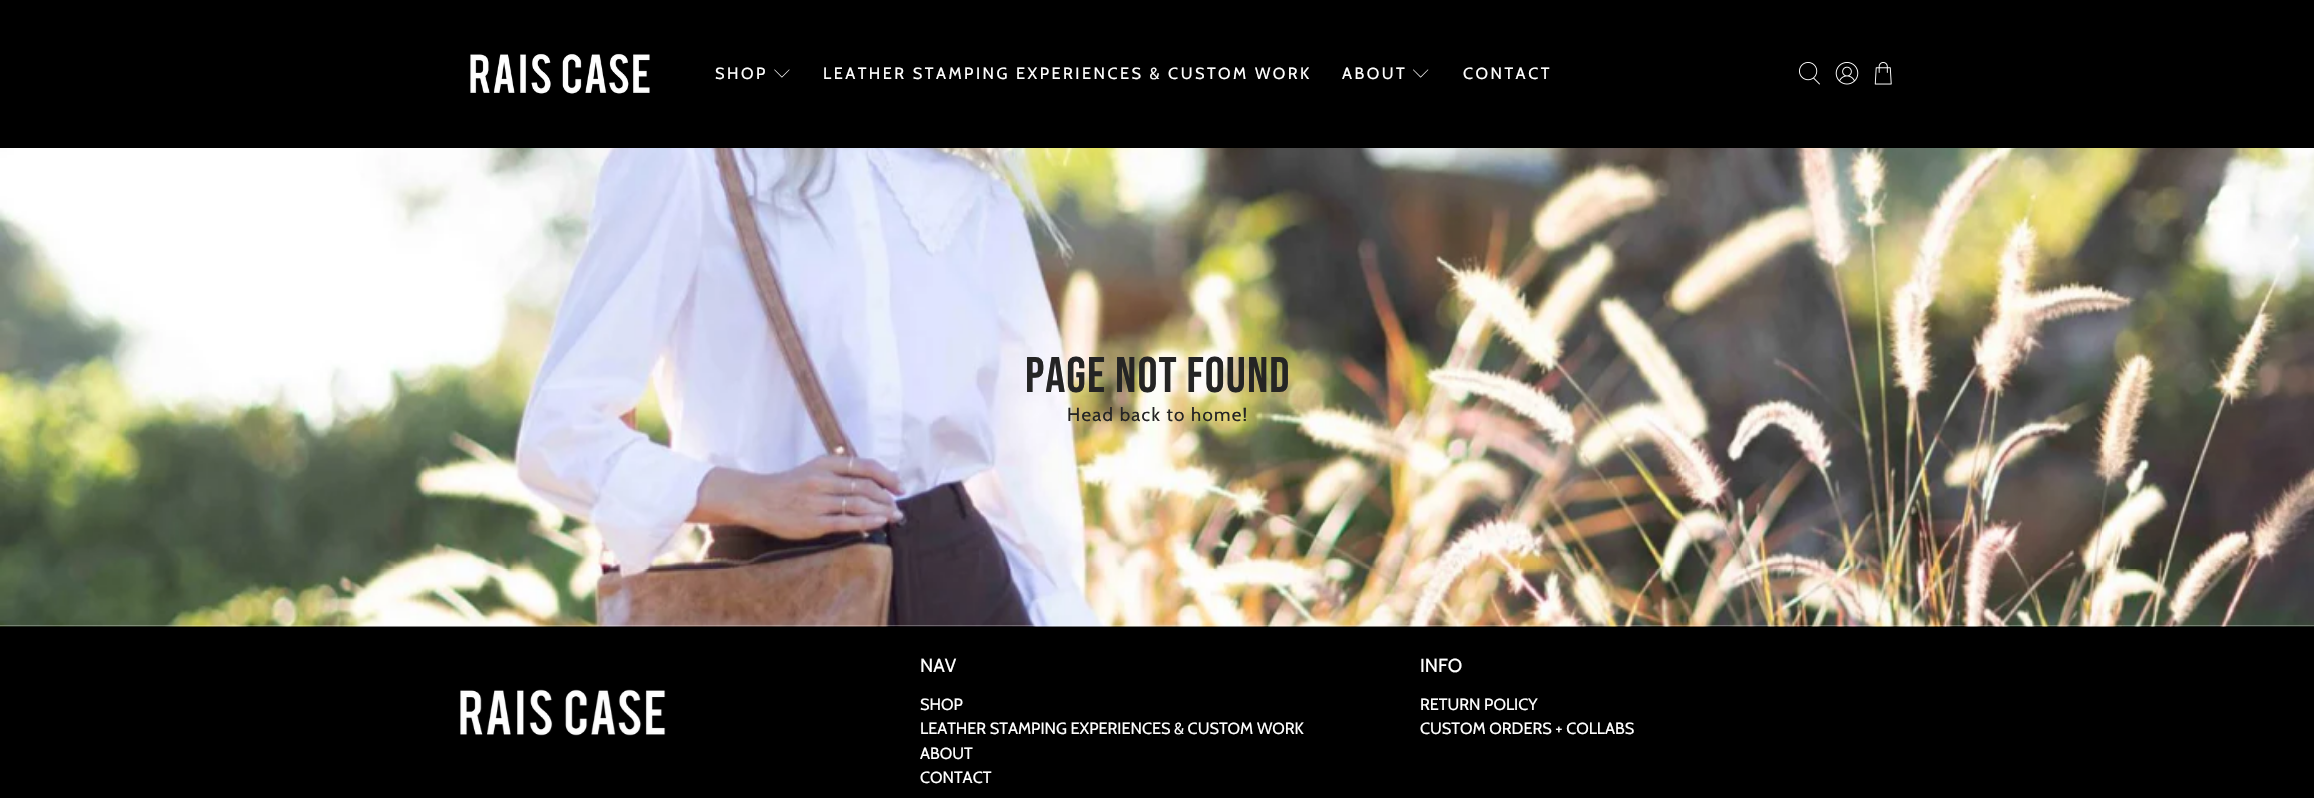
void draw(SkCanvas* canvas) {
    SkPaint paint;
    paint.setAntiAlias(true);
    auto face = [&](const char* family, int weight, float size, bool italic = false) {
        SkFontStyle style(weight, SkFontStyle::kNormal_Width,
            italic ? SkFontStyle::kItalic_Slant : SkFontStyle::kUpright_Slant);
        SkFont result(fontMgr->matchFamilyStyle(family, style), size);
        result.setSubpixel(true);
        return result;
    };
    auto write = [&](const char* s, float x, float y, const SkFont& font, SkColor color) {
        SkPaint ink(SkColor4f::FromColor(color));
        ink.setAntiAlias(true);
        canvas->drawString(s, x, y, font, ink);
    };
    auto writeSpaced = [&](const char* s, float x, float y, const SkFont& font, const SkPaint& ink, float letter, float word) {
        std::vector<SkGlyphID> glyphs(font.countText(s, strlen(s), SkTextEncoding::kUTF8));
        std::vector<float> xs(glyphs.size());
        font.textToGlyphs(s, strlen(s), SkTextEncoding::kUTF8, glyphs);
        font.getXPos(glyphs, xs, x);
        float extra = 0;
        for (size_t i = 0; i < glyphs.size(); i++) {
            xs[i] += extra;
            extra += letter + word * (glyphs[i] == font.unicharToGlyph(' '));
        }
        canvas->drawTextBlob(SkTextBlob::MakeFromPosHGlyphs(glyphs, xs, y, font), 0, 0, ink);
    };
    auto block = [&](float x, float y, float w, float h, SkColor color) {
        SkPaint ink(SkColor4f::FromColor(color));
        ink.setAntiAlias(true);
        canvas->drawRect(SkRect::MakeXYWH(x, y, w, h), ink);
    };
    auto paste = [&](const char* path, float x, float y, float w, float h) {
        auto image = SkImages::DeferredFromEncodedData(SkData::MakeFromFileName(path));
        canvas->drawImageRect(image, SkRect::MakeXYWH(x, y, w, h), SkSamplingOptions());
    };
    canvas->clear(SK_ColorWHITE);
    block(0, 0, 2314, 148, SK_ColorBLACK);
    paste("pic1.png", 470, 53, 180, 41);
    auto kFont1 = face("Cabin", 400, 16.25f);
    paint.setColor(SK_ColorWHITE);
    writeSpaced("SHOP", 715, 79, kFont1, paint, 2.5f, 0);
    paste("pic2.png", 774, 69, 16, 9);
    writeSpaced("LEATHER STAMPING EXPERIENCES & CUSTOM WORK", 823, 79, kFont1, paint, 2.5f, 0);
    writeSpaced("ABOUT", 1342, 79, kFont1, paint, 2.5f, 0);
    paste("pic3.png", 1413, 69, 16, 9);
    writeSpaced("CONTACT", 1463, 79, kFont1, paint, 2.5f, 0);
    paste("pic4.png", 1799, 62, 21, 23);
    paste("pic5.png", 1835, 62, 24, 23);
    paste("pic6.png", 1874, 62, 18, 23);
    block(0, 626, 2314, 172, SK_ColorBLACK);
    paste("pic7.png", 0, 148, 2314, 479);
    auto kFont2 = face("Bebas Neue", 400, 50);
    paint.setColor(SkColorSetRGB(36, 36, 36));
    writeSpaced("PAGE NOT FOUND", 1025, 392, kFont2, paint, 1, 0);
    auto kFont3 = face("Cabin", 400, 18.75f);
    writeSpaced("Head back to home!", 1067, 421, kFont3, paint, 1.25f, 0);
    paste("pic8.png", 460, 689, 206, 47);
    write("NAV", 920, 672, kFont3, SK_ColorWHITE);
    write("SHOP", 920, 710, kFont1, SK_ColorWHITE);
    write("LEATHER STAMPING EXPERIENCES & CUSTOM WORK", 920, 734, kFont1, SK_ColorWHITE);
    write("ABOUT", 920, 759, kFont1, SK_ColorWHITE);
    write("CONTACT", 920, 783, kFont1, SK_ColorWHITE);
    write("INFO", 1420, 672, kFont3, SK_ColorWHITE);
    write("RETURN POLICY", 1420, 710, kFont1, SK_ColorWHITE);
    write("CUSTOM ORDERS + COLLABS", 1420, 734, kFont1, SK_ColorWHITE);
}
